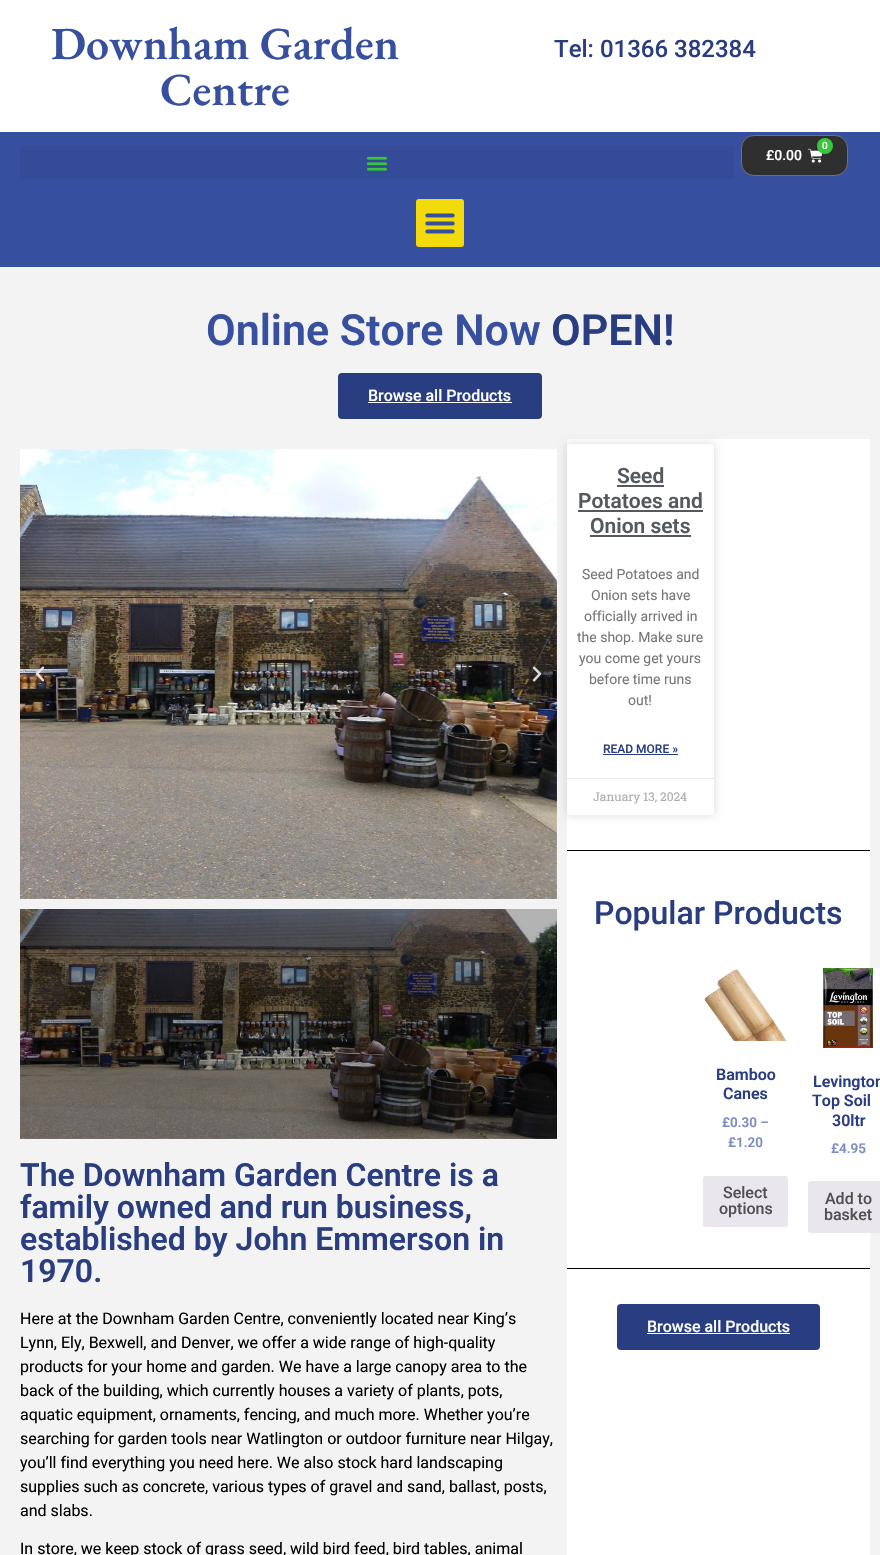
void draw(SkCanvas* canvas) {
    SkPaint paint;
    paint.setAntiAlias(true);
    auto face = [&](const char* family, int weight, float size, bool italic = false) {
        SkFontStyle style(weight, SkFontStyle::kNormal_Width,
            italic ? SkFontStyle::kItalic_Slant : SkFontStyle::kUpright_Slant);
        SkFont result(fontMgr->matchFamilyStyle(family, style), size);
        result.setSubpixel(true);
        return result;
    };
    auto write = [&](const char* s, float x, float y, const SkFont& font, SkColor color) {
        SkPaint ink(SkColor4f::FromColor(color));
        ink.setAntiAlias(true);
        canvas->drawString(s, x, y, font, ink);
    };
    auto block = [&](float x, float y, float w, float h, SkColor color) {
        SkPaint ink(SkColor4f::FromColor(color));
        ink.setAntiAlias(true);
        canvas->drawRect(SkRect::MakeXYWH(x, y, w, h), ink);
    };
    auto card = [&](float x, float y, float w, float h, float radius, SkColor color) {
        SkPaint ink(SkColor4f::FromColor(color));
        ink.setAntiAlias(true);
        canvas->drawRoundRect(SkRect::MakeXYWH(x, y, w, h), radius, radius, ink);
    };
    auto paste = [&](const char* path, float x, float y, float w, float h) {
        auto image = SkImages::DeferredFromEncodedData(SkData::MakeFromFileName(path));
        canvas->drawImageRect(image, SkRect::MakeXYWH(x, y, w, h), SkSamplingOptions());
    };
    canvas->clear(SkColorSetRGB(243, 243, 243));
    block(0, 0, 880, 132, SK_ColorWHITE);
    auto kFont1 = face("EB Garamond", 600, 46);
    write("Downham Garden", 51, 59, kFont1, SkColorSetRGB(55, 79, 159));
    write("Centre", 160, 105, kFont1, SkColorSetRGB(55, 79, 159));
    auto kFont2 = face("Roboto", 500, 24);
    write("Tel: 01366 382384", 554, 57, kFont2, SkColorSetRGB(41, 61, 129));
    block(0, 132, 880, 135, SkColorSetRGB(55, 79, 159));
    card(20, 146, 714, 33, 3, SkColorSetRGB(52, 75, 151));
    paste("pic1.png", 367, 156, 20, 15);
    paint.setColor(SkColorSetRGB(47, 47, 48));
    canvas->drawRoundRect(SkRect::MakeXYWH(741.5f, 135.5f, 106, 40), 12.5f, 12.5f, paint);
    paint.setStyle(SkPaint::kStroke_Style);
    paint.setStrokeWidth(1);
    paint.setColor(SkColorSetRGB(105, 114, 125));
    canvas->drawRoundRect(SkRect::MakeXYWH(741.5f, 135.5f, 106, 40), 12.5f, 12.5f, paint);
    paste("pic2.png", 808, 148, 15, 15);
    paint.setStyle(SkPaint::kFill_Style);
    paint.setColor(SkColorSetRGB(56, 198, 61));
    canvas->drawCircle(825, 146, 8, paint);
    auto kFont3 = face("Roboto", 500, 10);
    write("0", 822, 149, kFont3, SK_ColorWHITE);
    auto kFont4 = face("Roboto", 500, 14);
    write("£0.00", 766, 160, kFont4, SK_ColorWHITE);
    card(416, 199, 48, 48, 3, SkColorSetRGB(242, 218, 11));
    paste("pic3.png", 425, 213, 30, 21);
    auto kFont5 = face("Roboto", 600, 43);
    write("Online Store Now", 206, 345, kFont5, SkColorSetRGB(55, 79, 159));
    write("OPEN!", 551, 345, kFont5, SkColorSetRGB(41, 61, 129));
    card(338, 373, 204, 46, 4, SkColorSetRGB(41, 61, 129));
    auto kFont6 = face("Roboto", 500, 16);
    write("Browse all Products", 368, 401, kFont6, SK_ColorWHITE);
    block(368, 402, 144, 1, SK_ColorWHITE);
    block(567, 439, 303, 1116, SK_ColorWHITE);
    paint.setColor(SkColorSetARGB(38, 0, 0, 0));
    paint.setMaskFilter(SkMaskFilter::MakeBlur(kNormal_SkBlurStyle, 5));
    canvas->drawRoundRect(SkRect::MakeXYWH(567, 444, 147, 371), 3, 3, paint);
    paint.setMaskFilter(nullptr);
    paste("pic4.png", 20, 449, 537, 450);
    paste("pic5.png", 35, 666, 10, 16);
    paste("pic6.png", 532, 666, 10, 16);
    paste("pic7.png", 20, 909, 537, 230);
    auto kFont7 = face("Roboto", 600, 32);
    write("The Downham Garden Centre is a", 20, 1186, kFont7, SkColorSetRGB(41, 61, 129));
    write("family owned and run business,", 20, 1218, kFont7, SkColorSetRGB(41, 61, 129));
    write("established by John Emmerson in", 20, 1250, kFont7, SkColorSetRGB(41, 61, 129));
    write("1970.", 20, 1282, kFont7, SkColorSetRGB(41, 61, 129));
    auto kFont8 = face("Roboto", 400, 16);
    write("Here at the Downham Garden Centre, conveniently located near King’s", 20, 1324, kFont8, SK_ColorBLACK);
    write("Lynn, Ely, Bexwell, and Denver, we offer a wide range of high-quality", 20, 1348, kFont8, SK_ColorBLACK);
    write("products for your home and garden. We have a large canopy area to the", 20, 1372, kFont8, SK_ColorBLACK);
    write("back of the building, which currently houses a variety of plants, pots,", 20, 1396, kFont8, SK_ColorBLACK);
    write("aquatic equipment, ornaments, fencing, and much more. Whether you’re", 20, 1420, kFont8, SK_ColorBLACK);
    write("searching for garden tools near Watlington or outdoor furniture near Hilgay,", 20, 1444, kFont8, SK_ColorBLACK);
    write("you’ll find everything you need here. We also stock hard landscaping", 20, 1468, kFont8, SK_ColorBLACK);
    write("supplies such as concrete, various types of gravel and sand, ballast, posts,", 20, 1492, kFont8, SK_ColorBLACK);
    write("and slabs.", 20, 1516, kFont8, SK_ColorBLACK);
    write("In store, we keep stock of grass seed, wild bird feed, bird tables, animal", 20, 1554, kFont8, SK_ColorBLACK);
    card(567, 444, 147, 371, 3, SK_ColorWHITE);
    auto kFont9 = face("Roboto", 600, 21);
    write("Seed", 617, 483, kFont9, SkColorSetRGB(84, 89, 95));
    block(617, 485, 47, 2, SkColorSetRGB(84, 89, 95));
    write("Potatoes and", 578, 508, kFont9, SkColorSetRGB(84, 89, 95));
    block(578, 510, 125, 2, SkColorSetRGB(84, 89, 95));
    write("Onion sets", 590, 533, kFont9, SkColorSetRGB(84, 89, 95));
    block(590, 535, 101, 2, SkColorSetRGB(84, 89, 95));
    auto kFont10 = face("Roboto", 400, 14);
    write("Seed Potatoes and", 582, 579, kFont10, SkColorSetRGB(119, 119, 119));
    write("Onion sets have", 591, 600, kFont10, SkColorSetRGB(119, 119, 119));
    write("officially arrived in", 584, 621, kFont10, SkColorSetRGB(119, 119, 119));
    write("the shop. Make sure", 577, 642, kFont10, SkColorSetRGB(119, 119, 119));
    write("you come get yours", 579, 663, kFont10, SkColorSetRGB(119, 119, 119));
    write("before time runs", 589, 684, kFont10, SkColorSetRGB(119, 119, 119));
    write("out!", 628, 705, kFont10, SkColorSetRGB(119, 119, 119));
    auto kFont11 = face("Roboto", 500, 12);
    write("READ MORE »", 603, 753, kFont11, SkColorSetRGB(41, 61, 129));
    block(603, 754, 75, 1, SkColorSetRGB(41, 61, 129));
    block(567, 778, 147, 1, SkColorSetRGB(234, 234, 234));
    auto kFont12 = face("Roboto Slab", 400, 12);
    write("January 13, 2024", 593, 801, kFont12, SkColorSetRGB(173, 173, 173));
    block(567, 850, 303, 1, SK_ColorBLACK);
    auto kFont13 = face("Roboto", 500, 32);
    write("Popular Products", 594, 924, kFont13, SkColorSetRGB(41, 61, 129));
    paste("pic8.png", 703, 968, 84, 73);
    auto kFont14 = face("Roboto", 600, 16);
    write("Bamboo", 716, 1080, kFont14, SkColorSetRGB(41, 61, 129));
    write("Canes", 723, 1099, kFont14, SkColorSetRGB(41, 61, 129));
    auto kFont15 = face("Roboto", 600, 13.5f);
    write("£0.30 –", 722, 1127, kFont15, SkColorSetRGB(124, 141, 198));
    write("£1.20", 728, 1147, kFont15, SkColorSetRGB(124, 141, 198));
    card(703, 1176, 85, 51, 3, SkColorSetRGB(233, 230, 237));
    write("Select", 723, 1198, kFont6, SkColorSetRGB(81, 81, 81));
    write("options", 719, 1214, kFont6, SkColorSetRGB(81, 81, 81));
    block(870, 968, 10, 265, SK_ColorWHITE);
    paste("pic9.png", 822, 968, 52, 80);
    write("Levington", 813, 1087, kFont14, SkColorSetRGB(41, 61, 129));
    write("Top Soil", 812, 1106, kFont14, SkColorSetRGB(41, 61, 129));
    write("30ltr", 832, 1126, kFont14, SkColorSetRGB(41, 61, 129));
    write("£4.95", 831, 1153, kFont15, SkColorSetRGB(124, 141, 198));
    card(808, 1181, 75, 52, 3, SkColorSetRGB(233, 230, 237));
    write("Add to", 825, 1204, kFont6, SkColorSetRGB(81, 81, 81));
    write("basket", 824, 1220, kFont6, SkColorSetRGB(81, 81, 81));
    block(567, 1268, 303, 1, SK_ColorBLACK);
    card(617, 1304, 203, 46, 4, SkColorSetRGB(41, 61, 129));
    write("Browse all Products", 647, 1332, kFont6, SK_ColorWHITE);
    block(647, 1333, 143, 1, SK_ColorWHITE);
}
